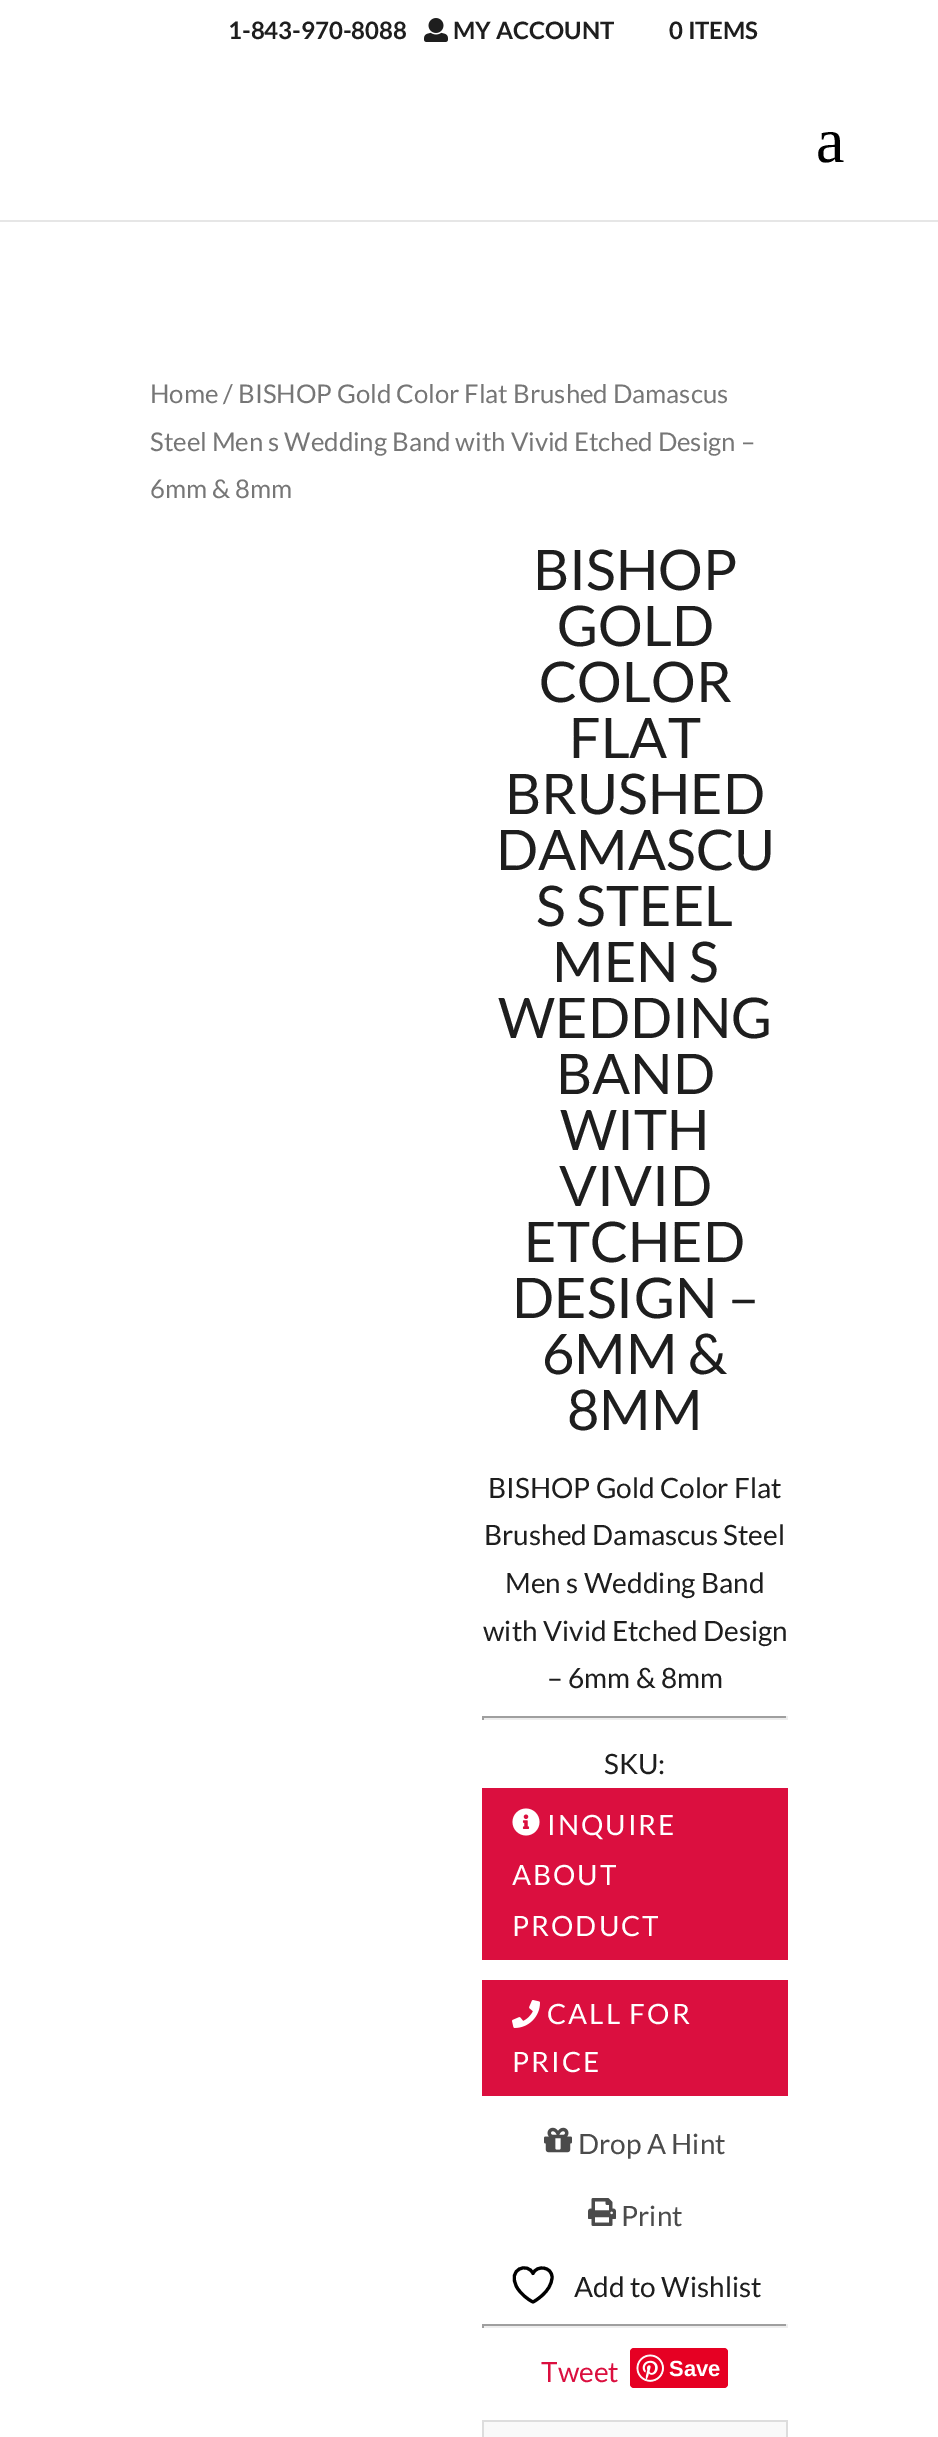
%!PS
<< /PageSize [938 2437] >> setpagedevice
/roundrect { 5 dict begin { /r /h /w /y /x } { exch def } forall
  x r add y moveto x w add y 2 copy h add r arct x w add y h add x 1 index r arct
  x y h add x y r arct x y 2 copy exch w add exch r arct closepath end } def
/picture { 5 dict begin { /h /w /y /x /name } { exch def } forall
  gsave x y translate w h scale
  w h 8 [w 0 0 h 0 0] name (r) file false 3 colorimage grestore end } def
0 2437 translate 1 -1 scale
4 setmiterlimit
1 setgray
0 0 938 2437 rectfill
/Lato-Bold [24 0 0 -24 0 0] selectfont
0.118 setgray
228 39 moveto (1-843-970-8088) show
(img1.rgb) 424 18 24 24 picture
453 39 moveto (MY ACCOUNT) show
669 39 moveto (0 ITEMS) show
0.902 setgray
0 220 938 2 rectfill
/LiberationSerif-Regular [64 0 0 -64 0 0] selectfont
0 setgray
816 162 moveto (a) show
/Lato-Regular [25.75 0 0 -25.75 0 0] selectfont
0.463 setgray
150 403 moveto (Home / BISHOP Gold Color Flat Brushed Damascus) show
150 451 moveto (Steel Men s Wedding Band with Vivid Etched Design –) show
150 498 moveto (6mm & 8mm) show
/Lato-Regular [56 0 0 -56 0 0] selectfont
0.118 setgray
533 590 moveto (BISHOP) show
557 646 moveto (GOLD) show
539 702 moveto (COLOR) show
569 758 moveto (FLAT) show
505 814 moveto (BRUSHED) show
496 870 moveto (DAMASCU) show
536 926 moveto (S STEEL) show
552 982 moveto (MEN S) show
498 1038 moveto (WEDDING) show
556 1094 moveto (BAND) show
560 1150 moveto (WITH) show
559 1206 moveto (VIVID) show
524 1262 moveto (ETCHED) show
512 1318 moveto (DESIGN –) show
542 1374 moveto (6MM &) show
567 1430 moveto (8MM) show
/Lato-Regular [28 0 0 -28 0 0] selectfont
488 1498 moveto (BISHOP Gold Color Flat) show
484 1545 moveto (Brushed Damascus Steel) show
505 1593 moveto (Men s Wedding Band) show
483 1641 moveto (with Vivid Etched Design) show
547 1688 moveto (– 6mm & 8mm) show
0.624 setgray
482 1716 306 2 rectfill
0.933 setgray
786 1716 2 4 rectfill
482 1718 306 2 rectfill
0.624 setgray
482 1716 2 4 rectfill
0.118 setgray
604 1774 moveto (SKU:) show
0.859 0.059 0.247 setrgbcolor
482 1788 306 172 rectfill
(img2.rgb) 512 1808 28 28 picture
1 setgray
547 1835 moveto 2 0 (INQUIRE) ashow
512 1885 moveto 2 0 (ABOUT) ashow
512 1936 moveto 2 0 (PRODUCT) ashow
0.859 0.059 0.247 setrgbcolor
482 1980 306 116 rectfill
(img3.rgb) 512 2000 28 28 picture
1 setgray
547 2024 moveto 2 0 (CALL FOR) ashow
512 2072 moveto 2 0 (PRICE) ashow
(img4.rgb) 544 2127 28 26 picture
0.294 setgray
578 2154 moveto (Drop A Hint) show
(img5.rgb) 588 2198 28 28 picture
621 2226 moveto (Print) show
0 setgray
3.1 setlinewidth
1 setlinecap
1 setlinejoin
newpath 552 2277 moveto 552 2267 537 2264.5 533 2273.5 curveto 528 2262 506.5 2268.5 517 2287.5 curveto 520.5 2293.5 527 2299 533 2302 curveto 533 2302 552 2292 552 2277 curveto closepath stroke
0.118 setgray
574 2297 moveto (Add to Wishlist) show
0.624 setgray
482 2324 306 2 rectfill
0.933 setgray
786 2324 2 4 rectfill
482 2326 306 2 rectfill
0.624 setgray
482 2324 2 4 rectfill
0.859 0.059 0.247 setrgbcolor
541 2382 moveto (Tweet) show
0.902 0 0.137 setrgbcolor
630 2348 98 40 4 roundrect fill
(img6.rgb) 636 2354 28 28 picture
/LiberationSans-Bold [22 0 0 -22 0 0] selectfont
1 setgray
669 2376 moveto (Save) show
0.976 setgray
484 2422 302 15 rectfill
0.867 setgray
482 2420 306 2 rectfill
786 2420 2 17 rectfill
482 2420 2 17 rectfill
showpage
